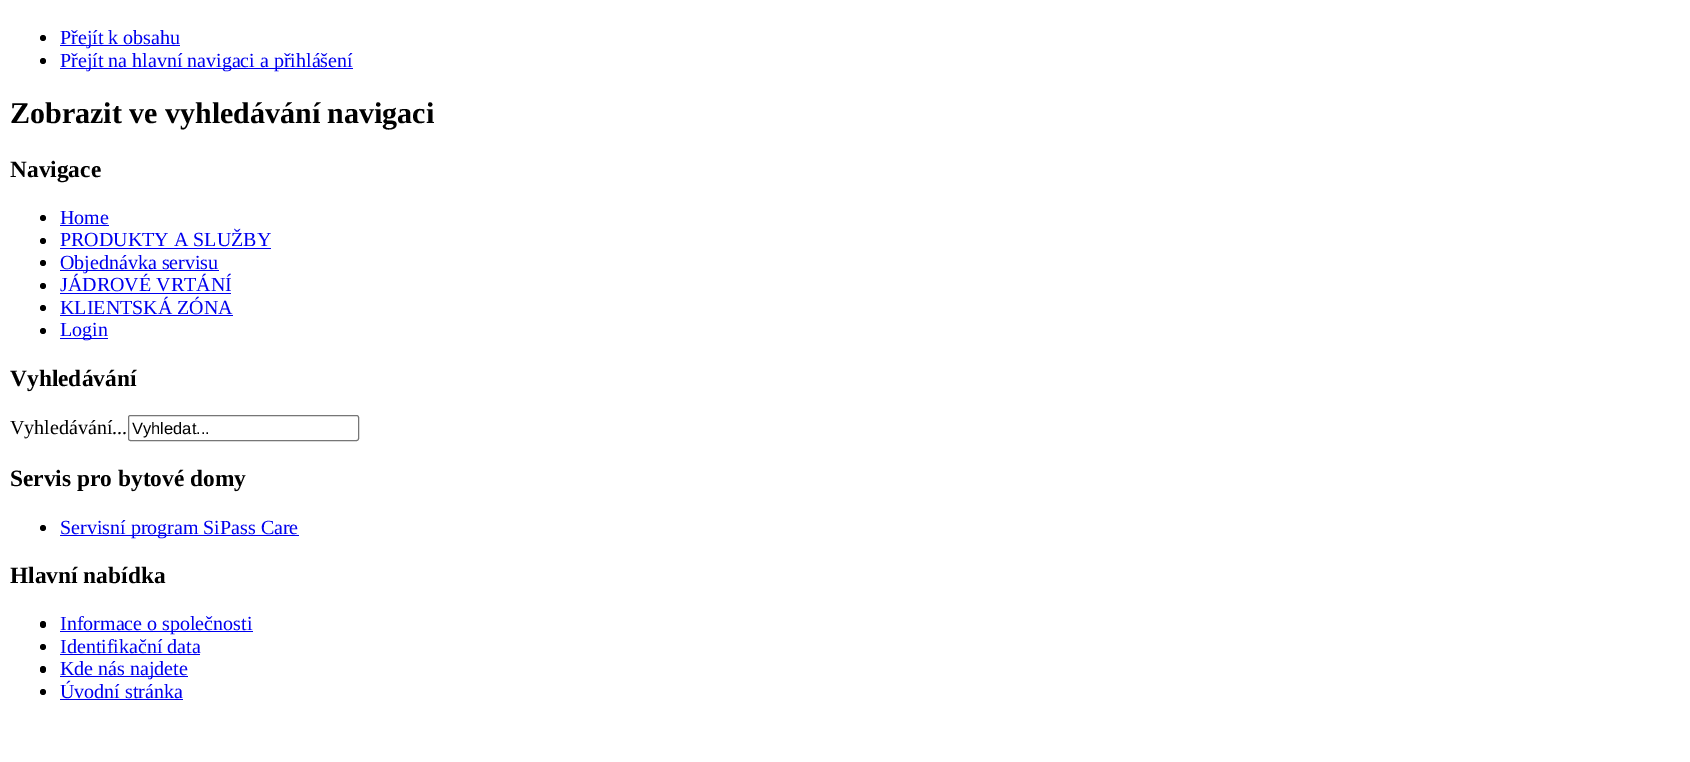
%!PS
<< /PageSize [1690 762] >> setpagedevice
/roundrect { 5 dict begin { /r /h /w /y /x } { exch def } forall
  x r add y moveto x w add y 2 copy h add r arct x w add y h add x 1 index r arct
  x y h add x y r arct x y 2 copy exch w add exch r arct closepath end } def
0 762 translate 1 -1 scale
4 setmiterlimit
1 setgray
0 0 1690 762 rectfill
0 setgray
newpath 43 38 3 0 360 arc closepath fill
0 0 0.933 setrgbcolor
60 45 120 1 rectfill
/LiberationSerif-Regular [20 0 0 -20 0 0] selectfont
60 44 moveto (Přejít k obsahu) show
0 setgray
newpath 43 61 3 0 360 arc closepath fill
0 0 0.933 setrgbcolor
60 68 293 1 rectfill
60 67 moveto (Přejít na hlavní navigaci a přihlášení) show
/LiberationSerif-Bold [30 0 0 -30 0 0] selectfont
0 setgray
10 123 moveto (Zobrazit ve vyhledávání navigaci) show
/LiberationSerif-Bold [23.4 0 0 -23.4 0 0] selectfont
10 177 moveto (Navigace) show
newpath 43 218 3 0 360 arc closepath fill
/LiberationSerif-Regular [20 0 0 -20 0 0] selectfont
0 0 0.933 setrgbcolor
60 224 moveto (Home) show
60 225 49 1 rectfill
0 setgray
newpath 43 241 3 0 360 arc closepath fill
0 0 0.933 setrgbcolor
60 246 moveto (PRODUKTY A SLUŽBY) show
60 248 211 1 rectfill
0 setgray
newpath 43 263 3 0 360 arc closepath fill
0 0 0.933 setrgbcolor
60 270 159 1 rectfill
60 269 moveto (Objednávka servisu) show
0 setgray
newpath 43 286 3 0 360 arc closepath fill
0 0 0.933 setrgbcolor
60 291 moveto (JÁDROVÉ VRTÁNÍ) show
60 293 171 1 rectfill
0 setgray
newpath 43 308 3 0 360 arc closepath fill
0 0 0.933 setrgbcolor
60 314 moveto (KLIENTSKÁ ZÓNA) show
60 315 173 1 rectfill
0 setgray
newpath 43 331 3 0 360 arc closepath fill
0 0 0.933 setrgbcolor
60 338 48 1 rectfill
60 336 moveto (Login) show
/LiberationSerif-Bold [23.4 0 0 -23.4 0 0] selectfont
0 setgray
10 386 moveto (Vyhledávání) show
/LiberationSerif-Regular [20 0 0 -20 0 0] selectfont
10 434 moveto (Vyhledávání...) show
0.463 setgray
128.5 415.5 230 25 2 roundrect stroke
/LiberationSans-Regular [16.5 0 0 -16.5 0 0] selectfont
0 setgray
132 434 moveto (Vyhledat...) show
/LiberationSerif-Bold [23.4 0 0 -23.4 0 0] selectfont
10 486 moveto (Servis pro bytové domy) show
newpath 43 528 3 0 360 arc closepath fill
0 0 0.933 setrgbcolor
60 535 239 1 rectfill
/LiberationSerif-Regular [20 0 0 -20 0 0] selectfont
60 534 moveto (Servisní program SiPass Care) show
/LiberationSerif-Bold [23.4 0 0 -23.4 0 0] selectfont
0 setgray
10 583 moveto (Hlavní nabídka) show
40 621 6 7 3 roundrect fill
0 0 0.933 setrgbcolor
60 631 193 1 rectfill
/LiberationSerif-Regular [20 0 0 -20 0 0] selectfont
60 630 moveto (Informace o společnosti) show
0 setgray
newpath 43 647 3 0 360 arc closepath fill
0 0 0.933 setrgbcolor
60 653 moveto (Identifikační data) show
60 654 140 1 rectfill
0 setgray
40 666 6 7 3 roundrect fill
0 0 0.933 setrgbcolor
60 676 128 1 rectfill
60 675 moveto (Kde nás najdete) show
0 setgray
newpath 43 692 3 0 360 arc closepath fill
0 0 0.933 setrgbcolor
60 698 moveto (Úvodní stránka) show
60 699 123 1 rectfill
showpage
